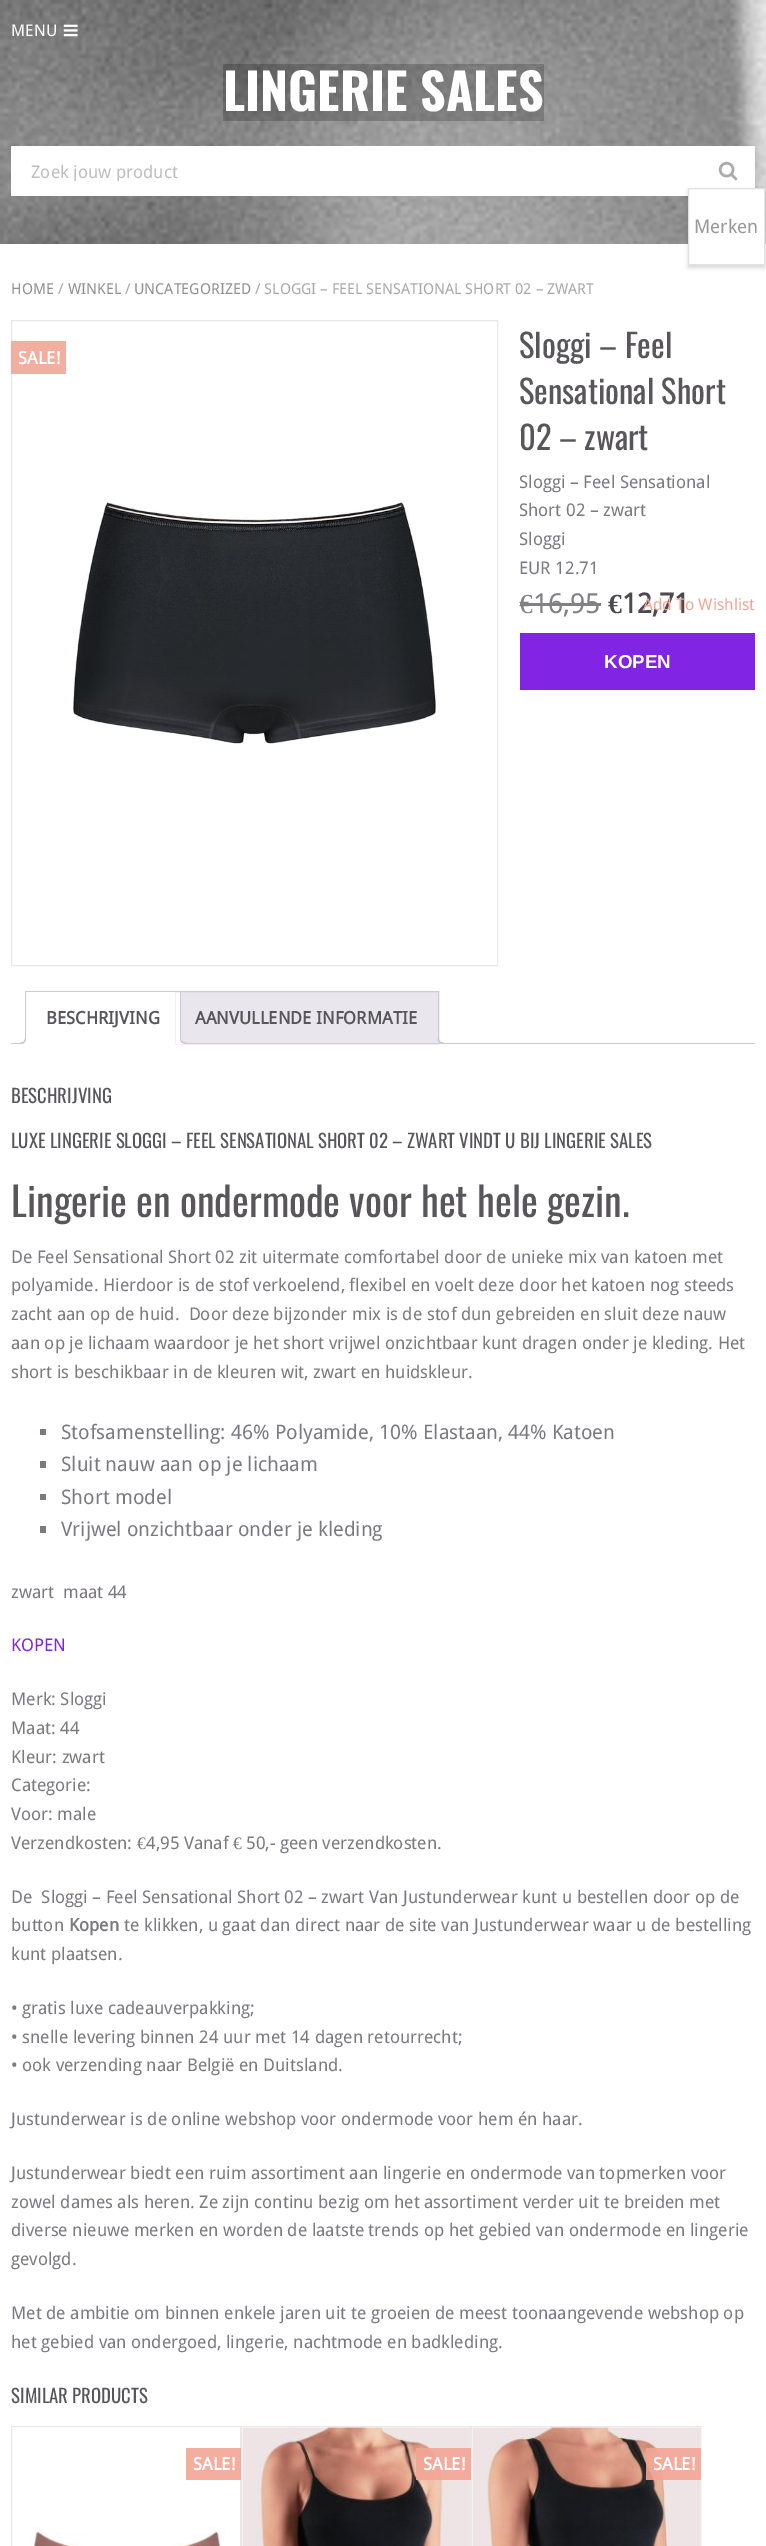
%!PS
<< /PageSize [766 2546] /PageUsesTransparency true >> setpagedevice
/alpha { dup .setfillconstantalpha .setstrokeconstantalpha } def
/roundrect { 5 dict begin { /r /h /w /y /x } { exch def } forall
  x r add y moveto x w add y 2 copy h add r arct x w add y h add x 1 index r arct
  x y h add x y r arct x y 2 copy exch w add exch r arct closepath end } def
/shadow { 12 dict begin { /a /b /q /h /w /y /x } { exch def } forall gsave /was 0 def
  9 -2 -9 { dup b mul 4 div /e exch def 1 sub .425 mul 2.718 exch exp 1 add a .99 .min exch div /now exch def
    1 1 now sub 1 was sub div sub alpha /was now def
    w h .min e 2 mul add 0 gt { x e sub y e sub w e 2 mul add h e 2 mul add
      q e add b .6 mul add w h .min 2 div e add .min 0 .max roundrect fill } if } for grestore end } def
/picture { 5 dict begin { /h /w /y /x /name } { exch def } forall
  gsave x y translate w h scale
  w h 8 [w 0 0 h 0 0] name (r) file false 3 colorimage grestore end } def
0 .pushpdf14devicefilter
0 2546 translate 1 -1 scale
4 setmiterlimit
1 setgray
0 0 766 2546 rectfill
(img1.rgb) 0 0 766 244 picture
/DroidSans-Regular [16.25 0 0 -16.25 0 0] selectfont
11 36 moveto (MENU) show
(img2.rgb) 63 24 15 13 picture
0.2 alpha
0 setgray
223 64 321 57 rectfill
/Oswald-Bold [50 0 0 -50 0 0] selectfont
1 alpha
1 setgray
223 111 moveto (LINGERIE SALES) show
11 146 744 50 rectfill
gsave
13 161 667 20 rectclip
/DroidSans-Regular [17.5 0 0 -17.5 0 0] selectfont
0.745 0.741 0.749 setrgbcolor
31 178 moveto (Zoek jouw product) show
grestore
(img3.rgb) 718 161 20 20 picture
/DroidSans-Regular [15 0 0 -15 0 0] selectfont
0.565 0.561 0.569 setrgbcolor
11 294 moveto (HOME) show
0.663 0.659 0.663 setrgbcolor
58 294 moveto (/) show
0.565 0.561 0.569 setrgbcolor
68 294 moveto (WINKEL) show
0.663 0.659 0.663 setrgbcolor
125 294 moveto (/) show
0.565 0.561 0.569 setrgbcolor
134 294 moveto (UNCATEGORIZED) show
0.663 0.659 0.663 setrgbcolor
255 294 moveto (/ SLOGGI – FEEL SENSATIONAL SHORT 02 – ZWART) show
0.91 setgray
11.5 320.5 486 645 rectstroke
(img4.rgb) 73 502 364 242 picture
/Oswald-Regular [32.5 0 0 -32.5 0 0] selectfont
0.345 0.337 0.357 setrgbcolor
519 358 moveto (Sloggi – Feel) show
519 404 moveto (Sensational Short) show
519 450 moveto (02 – zwart) show
/DroidSans-Regular [17.5 0 0 -17.5 0 0] selectfont
0.486 0.475 0.502 setrgbcolor
519 488 moveto (Sloggi – Feel Sensational) show
519 516 moveto (Short 02 – zwart) show
519 545 moveto (Sloggi) show
519 574 moveto (EUR 12.71) show
/LiberationSerif-Regular [27.5 0 0 -27.5 0 0] selectfont
0.51 0.502 0.522 setrgbcolor
519 613 moveto (€) show
520 603 14 3 rectfill
/DroidSans-Regular [27.5 0 0 -27.5 0 0] selectfont
533 613 moveto (16,95) show
534 603 67 3 rectfill
/LiberationSerif-Bold [27.5 0 0 -27.5 0 0] selectfont
0.298 0.286 0.318 setrgbcolor
608 613 moveto (€) show
/DroidSans-Bold [27.5 0 0 -27.5 0 0] selectfont
622 613 moveto (12,71) show
/DroidSans-Regular [16.25 0 0 -16.25 0 0] selectfont
0.949 0.647 0.584 setrgbcolor
643 610 moveto (Add To Wishlist) show
0.51 0.141 0.89 setrgbcolor
520 633 235 57 rectfill
/LiberationSans-Bold [18.75 0 0 -18.75 0 0] selectfont
1 setgray
604 668 moveto (KOPEN) show
0.9 alpha
0.949 0.647 0.584 setrgbcolor
11 341 55 33 rectfill
/DroidSans-Bold [17.5 0 0 -17.5 0 0] selectfont
1 alpha
1 setgray
18 364 moveto (SALE!) show
0.914 0.902 0.929 setrgbcolor
181 992 257 51 rectfill
0.812 0.784 0.847 setrgbcolor
174.5 991.5 264 52 rectstroke
1 setgray
174 992 1 51 rectfill
0.812 0.784 0.847 setrgbcolor
25 991 156 1 rectfill
gsave
11 991 744 53 rectclip
0.914 0.902 0.929 setrgbcolor
newpath 435 1040 moveto 435 1044 437 1046 441 1046 curveto 441 1043.5 lineto 439.5 1043 438 1041.5 437.5 1040 curveto closepath fill
grestore
newpath 437.5 1037.5 moveto 444 1037.5 lineto 444 1044 lineto 440.5 1044 437.5 1042.5 437.5 1039 curveto closepath 439 1037.5 moveto 444 1037.5 lineto 444 1042.5 lineto 441.5 1042.5 439 1041.5 439 1039 curveto closepath eofill
11 1043 744 1 rectfill
180 991 1 53 rectfill
1 setgray
25 1043 156 1 rectfill
0.812 0.784 0.847 setrgbcolor
25 991 1 53 rectfill
0.345 0.337 0.357 setrgbcolor
46 1024 moveto (BESCHRIJVING) show
gsave
11 991 744 53 rectclip
1 setgray
newpath 23 1043.5 moveto 23 1046 lineto 27 1046 29 1044 29 1040 curveto 26 1040 lineto 25.5 1041.5 24.5 1043 23 1043.5 curveto closepath fill
grestore
0.812 0.784 0.847 setrgbcolor
newpath 20 1037.5 moveto 26 1037.5 lineto 26 1042 24.5 1044 20 1044 curveto closepath 20 1037.5 moveto 25 1037.5 lineto 25 1041 23.5 1042.5 20 1042.5 curveto closepath eofill
gsave
11 991 744 53 rectclip
1 setgray
newpath 178 1040 moveto 178 1044 180 1046 184 1046 curveto 184 1043.5 lineto 182 1043.5 180.5 1042 180 1040 curveto closepath fill
grestore
newpath 180 1037.5 moveto 186 1037.5 lineto 186 1044 lineto 183 1044 180 1042.5 180 1039 curveto closepath 181 1037.5 moveto 186 1037.5 lineto 186 1042.5 lineto 184 1042.5 181 1041.5 181 1039 curveto closepath eofill
0.345 0.337 0.357 setrgbcolor
195 1024 moveto (AANVULLENDE INFORMATIE) show
/Oswald-Regular [18.75 0 0 -18.75 0 0] selectfont
11 1103 moveto (BESCHRIJVING) show
11 1148 moveto (LUXE LINGERIE SLOGGI – FEEL SENSATIONAL SHORT 02 – ZWART VINDT U BIJ LINGERIE SALES) show
/Oswald-Regular [40 0 0 -40 0 0] selectfont
11 1217 moveto (Lingerie en ondermode voor het hele gezin.) show
/DroidSans-Regular [17.5 0 0 -17.5 0 0] selectfont
0.486 0.475 0.502 setrgbcolor
11 1263 moveto (De Feel Sensational Short 02 zit uitermate comfortabel door de unieke mix van katoen met) show
11 1291 moveto (polyamide. Hierdoor is de stof verkoelend, flexibel en voelt deze door het katoen nog steeds) show
11 1320 moveto (zacht aan op de huid.  Door deze bijzonder mix is de stof dun gebreiden en sluit deze nauw) show
11 1349 moveto (aan op je lichaam waardoor je het short vrijwel onzichtbaar kunt dragen onder je kleding. Het) show
11 1378 moveto (short is beschikbaar in de kleuren wit, zwart en huidskleur.) show
40 1429 6 6 rectfill
/DroidSans-Regular [20 0 0 -20 0 0] selectfont
61 1439 moveto (Stofsamenstelling: 46% Polyamide, 10% Elastaan, 44% Katoen) show
40 1461 6 7 rectfill
61 1471 moveto (Sluit nauw aan op je lichaam) show
40 1494 6 6 rectfill
61 1504 moveto (Short model) show
40 1526 6 7 rectfill
61 1536 moveto (Vrijwel onzichtbaar onder je kleding) show
/DroidSans-Regular [17.5 0 0 -17.5 0 0] selectfont
11 1598 moveto (zwart  maat 44) show
0.51 0.141 0.89 setrgbcolor
11 1651 moveto (KOPEN) show
0.486 0.475 0.502 setrgbcolor
11 1705 moveto (Merk: Sloggi) show
11 1734 moveto (Maat: 44) show
11 1763 moveto (Kleur: zwart) show
11 1791 moveto (Categorie:) show
11 1820 moveto (Voor: male) show
11 1849 moveto (Verzendkosten:) show
/LiberationSerif-Regular [17.5 0 0 -17.5 0 0] selectfont
137 1849 moveto (€) show
/DroidSans-Regular [17.5 0 0 -17.5 0 0] selectfont
146 1849 moveto (4,95 Vanaf) show
/LiberationSerif-Regular [17.5 0 0 -17.5 0 0] selectfont
233 1849 moveto (€) show
/DroidSans-Regular [17.5 0 0 -17.5 0 0] selectfont
246 1849 moveto (50,- geen verzendkosten.) show
11 1903 moveto (De  Sloggi – Feel Sensational Short 02 – zwart Van Justunderwear kunt u bestellen door op de) show
11 1931 moveto (button) show
/DroidSans-Bold [17.5 0 0 -17.5 0 0] selectfont
69 1931 moveto (Kopen) show
/DroidSans-Regular [17.5 0 0 -17.5 0 0] selectfont
124 1931 moveto (te klikken, u gaat dan direct naar de site van Justunderwear waar u de bestelling) show
11 1960 moveto (kunt plaatsen.) show
11 2014 moveto (• gratis luxe cadeauverpakking;) show
11 2043 moveto (• snelle levering binnen 24 uur met 14 dagen retourrecht;) show
11 2071 moveto (• ook verzending naar België en Duitsland.) show
11 2125 moveto (Justunderwear is de online webshop voor ondermode voor hem én haar.) show
11 2179 moveto (Justunderwear biedt een ruim assortiment aan lingerie en ondermode van topmerken voor) show
11 2208 moveto (zowel dames als heren. Ze zijn continu bezig om het assortiment verder uit te breiden met) show
11 2236 moveto (diverse nieuwe merken en worden de laatste trends op het gebied van ondermode en lingerie) show
11 2265 moveto (gevolgd.) show
11 2319 moveto (Met de ambitie om binnen enkele jaren uit te groeien de meest toonaangevende webshop op) show
11 2348 moveto (het gebied van ondergoed, lingerie, nachtmode en badkleding.) show
/Oswald-Regular [18.75 0 0 -18.75 0 0] selectfont
0.345 0.337 0.357 setrgbcolor
11 2403 moveto (SIMILAR PRODUCTS) show
0.91 setgray
11.5 2426.5 229 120 rectstroke
(img5.rgb) 31 2527 194 19 picture
0.9 alpha
0.949 0.647 0.584 setrgbcolor
186 2448 55 32 rectfill
/DroidSans-Bold [17.5 0 0 -17.5 0 0] selectfont
1 alpha
1 setgray
193 2470 moveto (SALE!) show
0.91 setgray
241.5 2426.5 229 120 rectstroke
(img6.rgb) 242 2427 228 119 picture
0.9 alpha
0.949 0.647 0.584 setrgbcolor
416 2448 55 32 rectfill
1 alpha
1 setgray
423 2470 moveto (SALE!) show
0.91 setgray
471.5 2426.5 229 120 rectstroke
(img7.rgb) 472 2427 228 119 picture
0.9 alpha
0.949 0.647 0.584 setrgbcolor
646 2448 55 32 rectfill
1 alpha
1 setgray
653 2470 moveto (SALE!) show
0 setgray
688 190 77 78 0 2 0.15 shadow
1 setgray
newpath 688.5 188.5 moveto 764.5 188.5 lineto 764.5 264.5 lineto 688.5 264.5 lineto closepath gsave fill grestore
0.882 setgray
stroke
/DroidSans-Regular [18.75 0 0 -18.75 0 0] selectfont
0.6 setgray
694 233 moveto (Merken) show
.poppdf14devicefilter showpage
